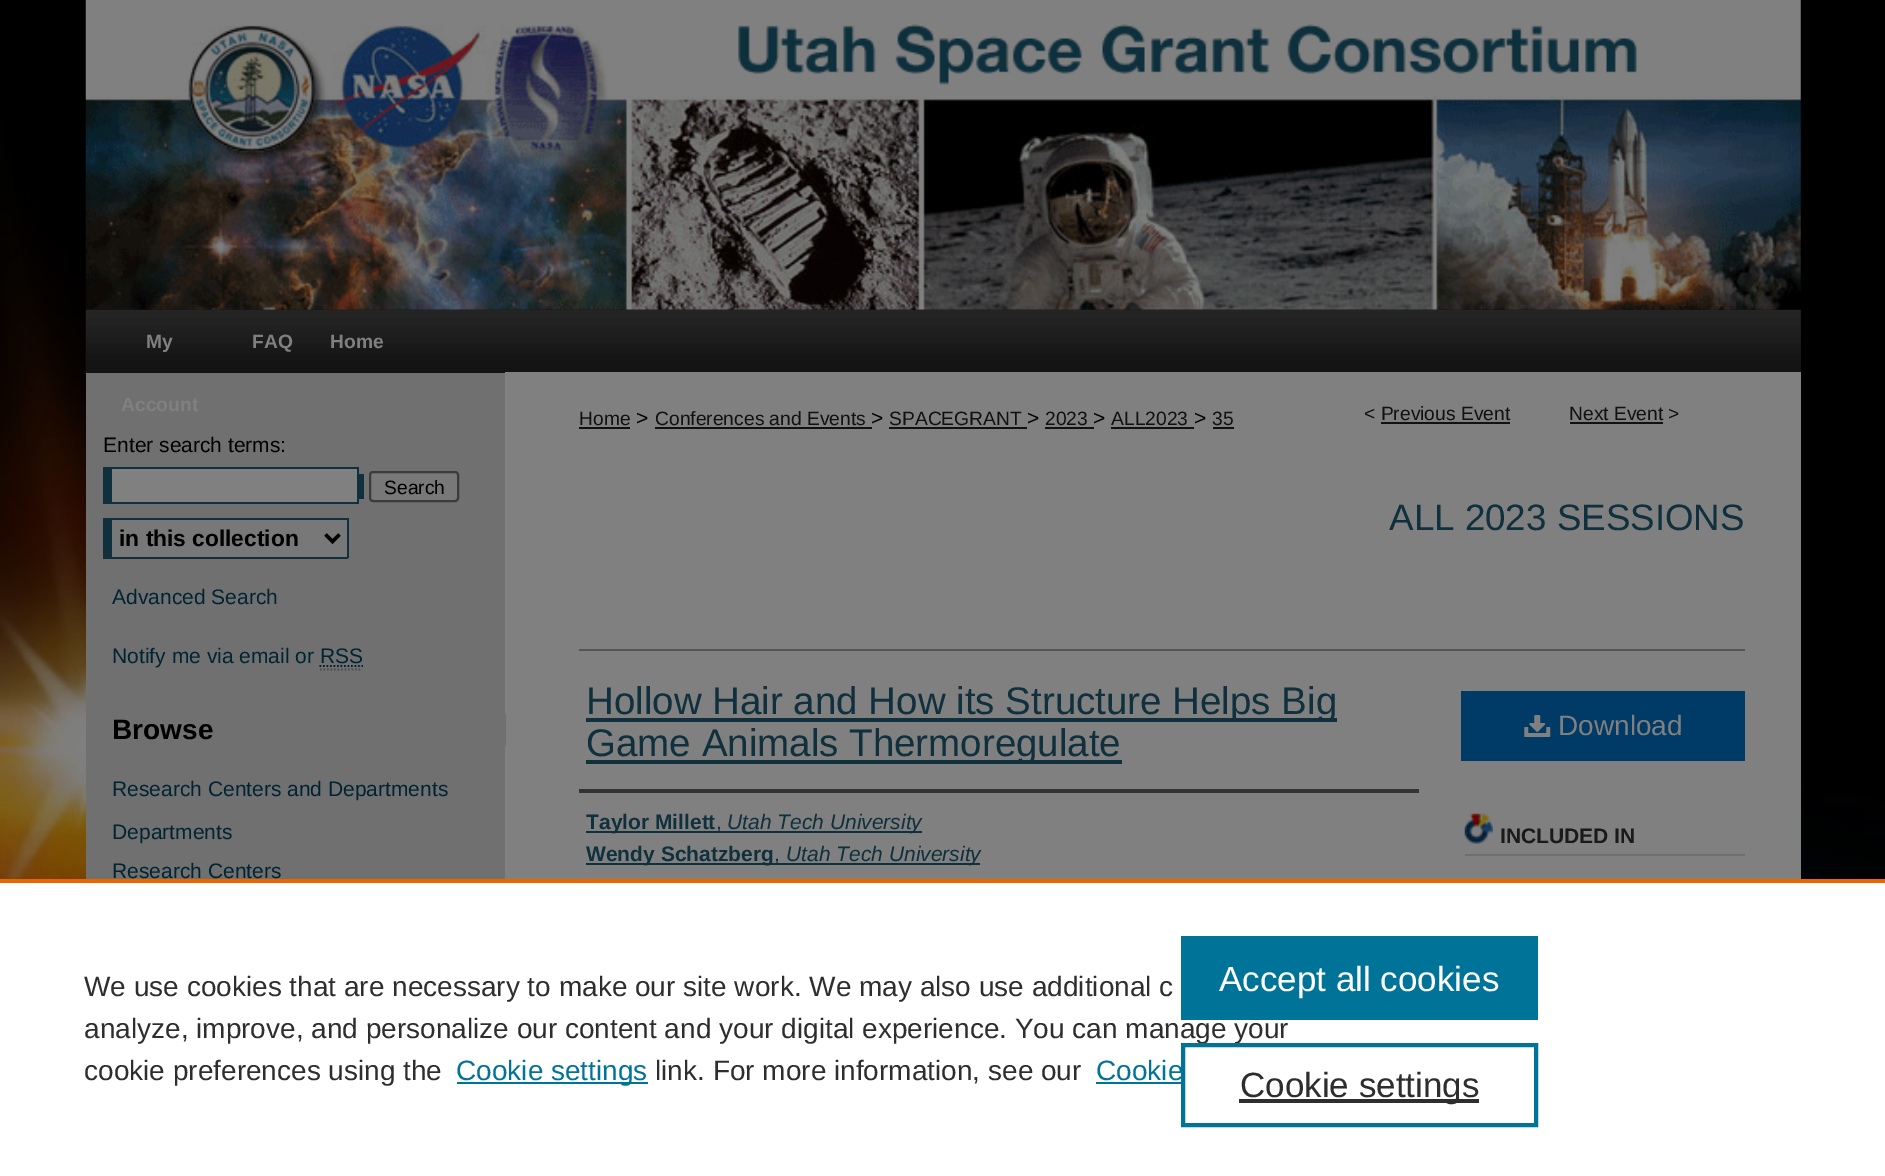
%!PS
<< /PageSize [1885 1176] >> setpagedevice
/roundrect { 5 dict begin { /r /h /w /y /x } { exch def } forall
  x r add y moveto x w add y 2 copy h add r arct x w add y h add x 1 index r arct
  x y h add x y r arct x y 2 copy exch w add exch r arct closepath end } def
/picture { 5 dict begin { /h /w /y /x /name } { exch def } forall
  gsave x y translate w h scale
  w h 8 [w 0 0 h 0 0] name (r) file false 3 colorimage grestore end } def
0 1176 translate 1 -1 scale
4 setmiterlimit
1 setgray
0 0 1885 1176 rectfill
(img1.rgb) 0 0 1885 879 picture
0 setgray
86 0 501 310 rectfill
(img2.rgb) 85 0 1716 310 picture
(img3.rgb) 85 309 1716 64 picture
/LiberationSans-Bold [19.25 0 0 -19.25 0 0] selectfont
0.502 setgray
146 348 moveto (My) show
0.439 setgray
86 373 419 506 rectfill
0.502 setgray
121 411 moveto (Account) show
252 348 moveto (FAQ) show
330 348 moveto (Home) show
505 372 1296 507 rectfill
/LiberationSans-Regular [21 0 0 -21 0 0] selectfont
0 setgray
103 452 moveto (Enter search terms:) show
0.059 0.188 0.235 setrgbcolor
359 474 5 25 rectfill
0.502 setgray
112 469 245 33 rectfill
0.059 0.188 0.235 setrgbcolor
112 467 247 2 rectfill
357 467 2 37 rectfill
112 502 247 2 rectfill
103 467 9 37 rectfill
0.471 setgray
370 472 88 29 3 roundrect gsave fill grestore
0.231 setgray
2 setlinewidth
stroke
/LiberationSans-Regular [19.25 0 0 -19.25 0 0] selectfont
0 setgray
384 494 moveto (Search) show
0.471 setgray
112 520 235 37 rectfill
0.059 0.188 0.235 setrgbcolor
112 518 236 2 rectfill
347 518 2 40 rectfill
103 557 245 2 rectfill
103 518 9 39 rectfill
0 setgray
3.5 setlinewidth
newpath 325.5 534.5 moveto 332.5 541.5 lineto 339.5 534.5 lineto stroke
/LiberationSans-Bold [22.75 0 0 -22.75 0 0] selectfont
119 546 moveto (in this collection) show
/LiberationSans-Regular [21 0 0 -21 0 0] selectfont
0 0.141 0.192 setrgbcolor
112 604 moveto (Advanced Search) show
112 663 moveto (Notify me via email or RSS) show
1.8 setlinewidth
[1.75 1.75] 0 setdash
newpath 319.5 666 moveto 363 666 lineto stroke
0.302 setgray
newpath 320 669.5 moveto 362 669.5 lineto stroke
0.439 setgray
505 714 1 32 rectfill
/LiberationSans-Bold [28 0 0 -28 0 0] selectfont
0 setgray
112 739 moveto (Browse) show
/LiberationSans-Regular [21 0 0 -21 0 0] selectfont
0 0.141 0.192 setrgbcolor
112 796 moveto (Research Centers and Departments) show
112 839 moveto (Departments) show
112 878 moveto (Research Centers) show
/LiberationSans-Regular [19.25 0 0 -19.25 0 0] selectfont
0.067 setgray
579 425 moveto (Home) show
579 427 51 2 rectfill
/LiberationSans-Regular [21 0 0 -21 0 0] selectfont
0 setgray
636 425 moveto (>) show
/LiberationSans-Regular [19.25 0 0 -19.25 0 0] selectfont
0.067 setgray
655 425 moveto (Conferences and Events) show
655 427 217 2 rectfill
/LiberationSans-Regular [21 0 0 -21 0 0] selectfont
0 setgray
871 425 moveto (>) show
/LiberationSans-Regular [19.25 0 0 -19.25 0 0] selectfont
0.067 setgray
889 425 moveto (SPACEGRANT) show
889 427 138 2 rectfill
/LiberationSans-Regular [21 0 0 -21 0 0] selectfont
0 setgray
1027 425 moveto (>) show
/LiberationSans-Regular [19.25 0 0 -19.25 0 0] selectfont
0.067 setgray
1045 425 moveto (2023) show
1045 427 49 2 rectfill
/LiberationSans-Regular [21 0 0 -21 0 0] selectfont
0 setgray
1093 425 moveto (>) show
/LiberationSans-Regular [19.25 0 0 -19.25 0 0] selectfont
0.067 setgray
1111 425 moveto (ALL2023) show
1111 427 83 2 rectfill
/LiberationSans-Regular [21 0 0 -21 0 0] selectfont
0 setgray
1194 425 moveto (>) show
/LiberationSans-Regular [19.25 0 0 -19.25 0 0] selectfont
0.067 setgray
1212 425 moveto (35) show
1213 427 21 2 rectfill
1364 420 moveto (< Previous Event) show
1381 422 129 2 rectfill
1569 420 moveto (Next Event >) show
1570 422 93 2 rectfill
/LiberationSans-Regular [36.75 0 0 -36.75 0 0] selectfont
0.059 0.188 0.235 setrgbcolor
1389 530 moveto (ALL 2023 SESSIONS) show
0.333 setgray
579 649 1166 2 rectfill
0.059 0.188 0.235 setrgbcolor
586 718 751 4 rectfill
/LiberationSans-Regular [38.5 0 0 -38.5 0 0] selectfont
586 714 moveto (Hollow Hair and How its Structure Helps Big) show
586 760 536 4 rectfill
586 756 moveto (Game Animals Thermoregulate) show
0.2 setgray
579 789 840 4 rectfill
0.059 0.188 0.235 setrgbcolor
586 831 336 2 rectfill
/LiberationSans-Bold [21 0 0 -21 0 0] selectfont
586 829 moveto (Taylor Millett) show
/LiberationSans-Regular [21 0 0 -21 0 0] selectfont
716 829 moveto (,) show
/LiberationSans-Italic [21 0 0 -21 0 0] selectfont
727 829 moveto (Utah Tech University) show
586 863 394 2 rectfill
/LiberationSans-Bold [21 0 0 -21 0 0] selectfont
586 861 moveto (Wendy Schatzberg) show
/LiberationSans-Regular [21 0 0 -21 0 0] selectfont
774 861 moveto (,) show
/LiberationSans-Italic [21 0 0 -21 0 0] selectfont
786 861 moveto (Utah Tech University) show
0 0.227 0.4 setrgbcolor
1461 691 284 70 rectfill
(img4.rgb) 1524 715 27 22 picture
/LiberationSans-Regular [28 0 0 -28 0 0] selectfont
0.502 setgray
1558 735 moveto (Download) show
(img5.rgb) 1464 813 29 31 picture
0.435 setgray
1465 854 280 2 rectfill
/LiberationSans-Bold [21 0 0 -21 0 0] selectfont
0.102 setgray
1500 843 moveto (INCLUDED IN) show
0.922 0.396 0 setrgbcolor
0 879 1885 4 rectfill
/LiberationSans-Regular [28 0 0 -28 0 0] selectfont
0.18 setgray
84 996 moveto (We use cookies that are necessary to make our site work. We may also use additional c) show
84 1038 moveto (analyze, improve, and personalize our content and your digital experience. You can manage your) show
84 1080 moveto (cookie preferences using the) show
0 0.451 0.596 setrgbcolor
457 1082 191 2 rectfill
456 1080 moveto (Cookie settings) show
0.18 setgray
655 1080 moveto (link. For more information, see our) show
0 0.451 0.596 setrgbcolor
1096 1080 moveto (Cookie) show
1096 1082 85 2 rectfill
1181 936 357 84 rectfill
/LiberationSans-Regular [35 0 0 -35 0 0] selectfont
1 setgray
1219 991 moveto (Accept all cookies) show
0 0.451 0.596 setrgbcolor
4 setlinewidth
[] 0 setdash
1183 1045 353 80 rectstroke
0.18 setgray
1239 1099 240 4 rectfill
1240 1097 moveto (Cookie settings) show
showpage
